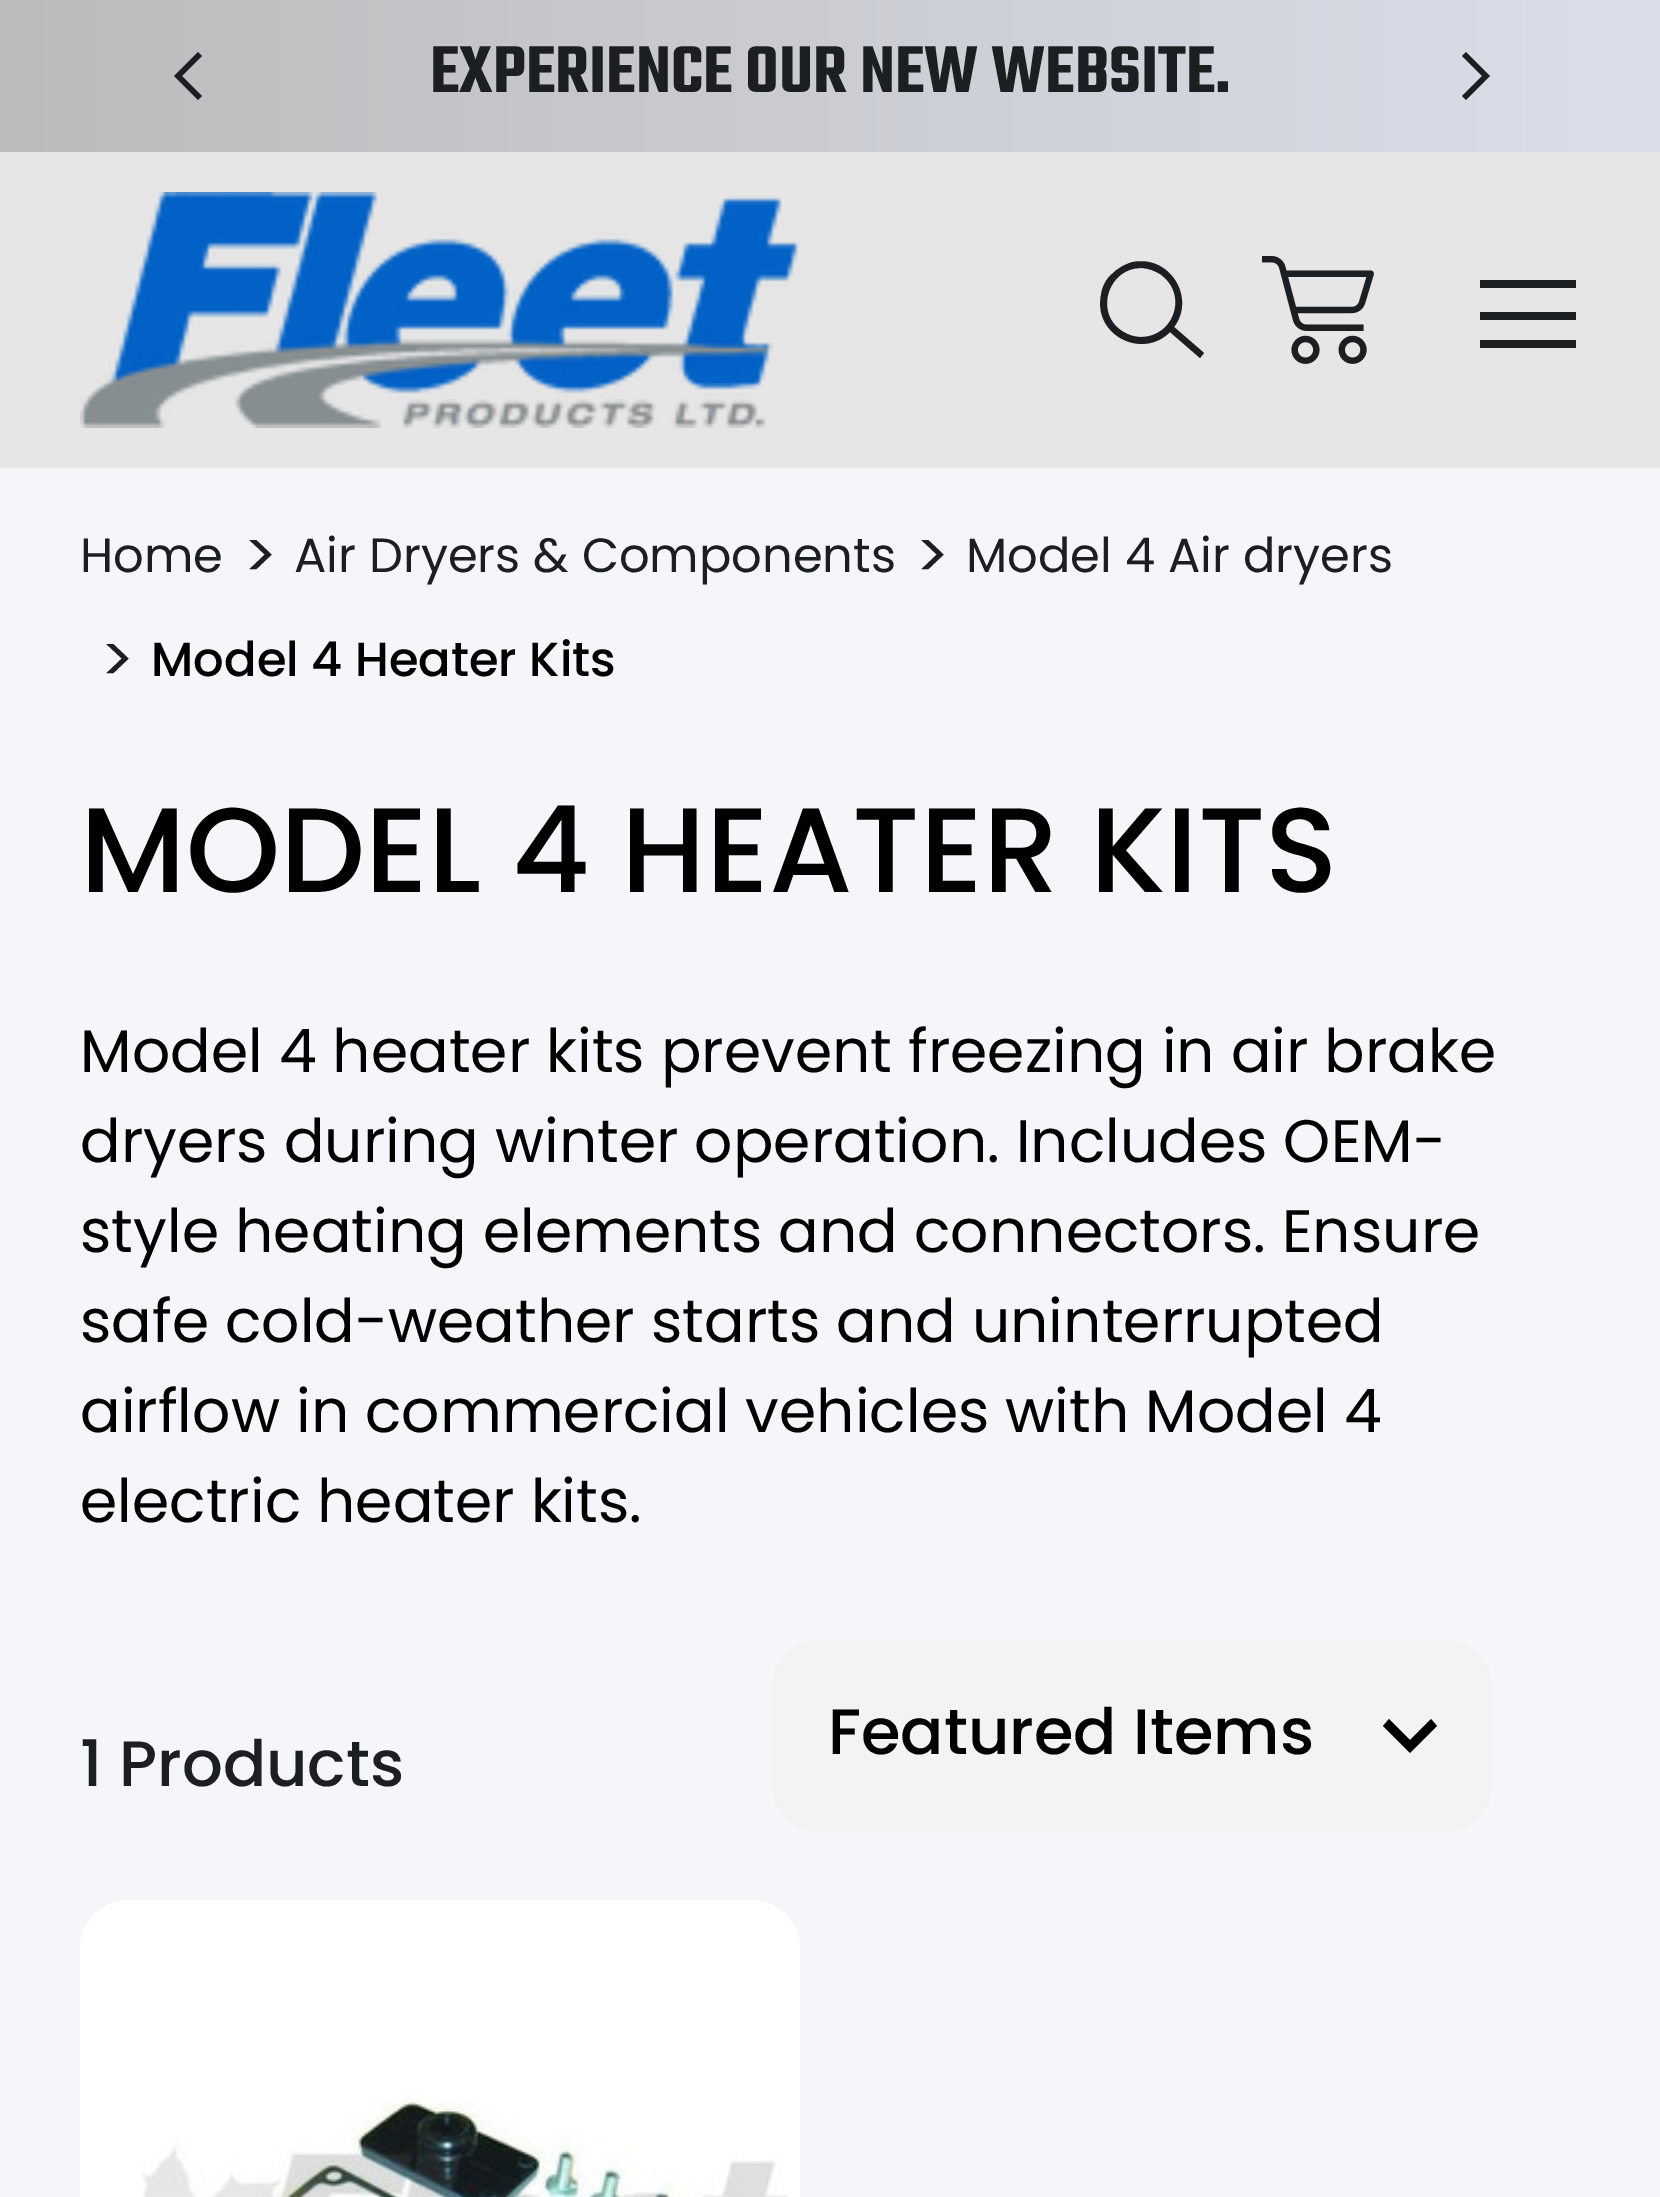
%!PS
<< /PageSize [1660 2197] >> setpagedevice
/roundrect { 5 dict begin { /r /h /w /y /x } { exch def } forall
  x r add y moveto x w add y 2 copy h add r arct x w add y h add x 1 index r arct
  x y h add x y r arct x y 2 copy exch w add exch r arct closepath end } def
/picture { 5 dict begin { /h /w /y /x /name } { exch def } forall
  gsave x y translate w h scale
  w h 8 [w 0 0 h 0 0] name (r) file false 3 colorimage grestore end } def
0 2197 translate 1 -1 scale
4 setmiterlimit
0.957 0.965 0.976 setrgbcolor
0 0 1660 2197 rectfill
0.902 setgray
0 152 1660 316 rectfill
gsave newpath 0 0 moveto 1660 0 lineto 1660 152 lineto 0 152 lineto closepath clip newpath
<< /ShadingType 2 /ColorSpace /DeviceRGB /Coords [0 76 1660 76] /Extend [true true] /Function << /FunctionType 2 /Domain [0 1] /C0 [0.733 0.733 0.733] /C1 [0.859 0.875 0.922] /N 1 >> >> shfill grestore
0.11 0.122 0.133 setrgbcolor
newpath 198 100 moveto 174 76 lineto 198 52 lineto 202 56 lineto 182 76 lineto 202 96 lineto closepath fill
/Teko-SemiBold [72 0 0 -72 0 0] selectfont
430 92 moveto (EXPERIENCE OUR NEW WEBSITE.) show
newpath 1466 52 moveto 1490 76 lineto 1466 100 lineto 1462 96 lineto 1482 76 lineto 1462 56 lineto closepath fill
(img1.rgb) 80 192 720 236 picture
newpath 1204 353 moveto 1174 327 lineto 1196 298 1170 255 1133 262 curveto 1125 264 1118 268 1112 274 curveto 1106 279 1102 287 1101 295 curveto 1093 335 1142 360 1170 332 curveto 1200 358 lineto closepath 1141 337 moveto 1134 337 1128 335 1122 331 curveto 1094 313 1108 268 1141 268 curveto 1148 268 1155 271 1160 274 curveto 1189 294 1174 337 1141 337 curveto closepath fill
(img2.rgb) 1262 256 112 108 picture
1480 312 96 8 rectfill
1480 280 96 8 rectfill
1480 340 96 8 rectfill
/Poppins-Regular [48 0 0 -48 0 0] selectfont
80 572 moveto (Home) show
/Poppins-Regular [64 0 0 -64 0 0] selectfont
243 578 moveto (>) show
/Poppins-Regular [48 0 0 -48 0 0] selectfont
294 572 moveto (Air Dryers & Components) show
/Poppins-Regular [64 0 0 -64 0 0] selectfont
915 578 moveto (>) show
/Poppins-Regular [48 0 0 -48 0 0] selectfont
966 572 moveto (Model 4 Air dryers) show
/Poppins-Regular [64 0 0 -64 0 0] selectfont
100 682 moveto (>) show
/Poppins-Medium [48 0 0 -48 0 0] selectfont
0 setgray
151 676 moveto (Model 4 Heater Kits) show
/Poppins-Medium [120 0 0 -120 0 0] selectfont
80 892 moveto (MODEL 4 HEATER KITS) show
/Poppins-Regular [60 0 0 -60 0 0] selectfont
80 1072 moveto (Model 4 heater kits prevent freezing in air brake) show
80 1162 moveto (dryers during winter operation. Includes OEM-) show
80 1252 moveto (style heating elements and connectors. Ensure) show
80 1342 moveto (safe cold-weather starts and uninterrupted) show
80 1432 moveto (airflow in commercial vehicles with Model 4) show
80 1522 moveto (electric heater kits.) show
0.953 setgray
772 1640 720 192 48 roundrect fill
0 setgray
newpath 1389 1719 moveto 1410 1740 lineto 1431 1719 lineto 1437 1726 lineto 1410 1753 lineto 1383 1726 lineto closepath fill
/Poppins-Medium [64 0 0 -64 0 0] selectfont
828 1754 moveto (Featured Items) show
0.11 0.122 0.133 setrgbcolor
80 1786 moveto (1 Products) show
1 setgray
80 1900 720 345 48 roundrect fill
(img3.rgb) 141 2095 648 102 picture
showpage
